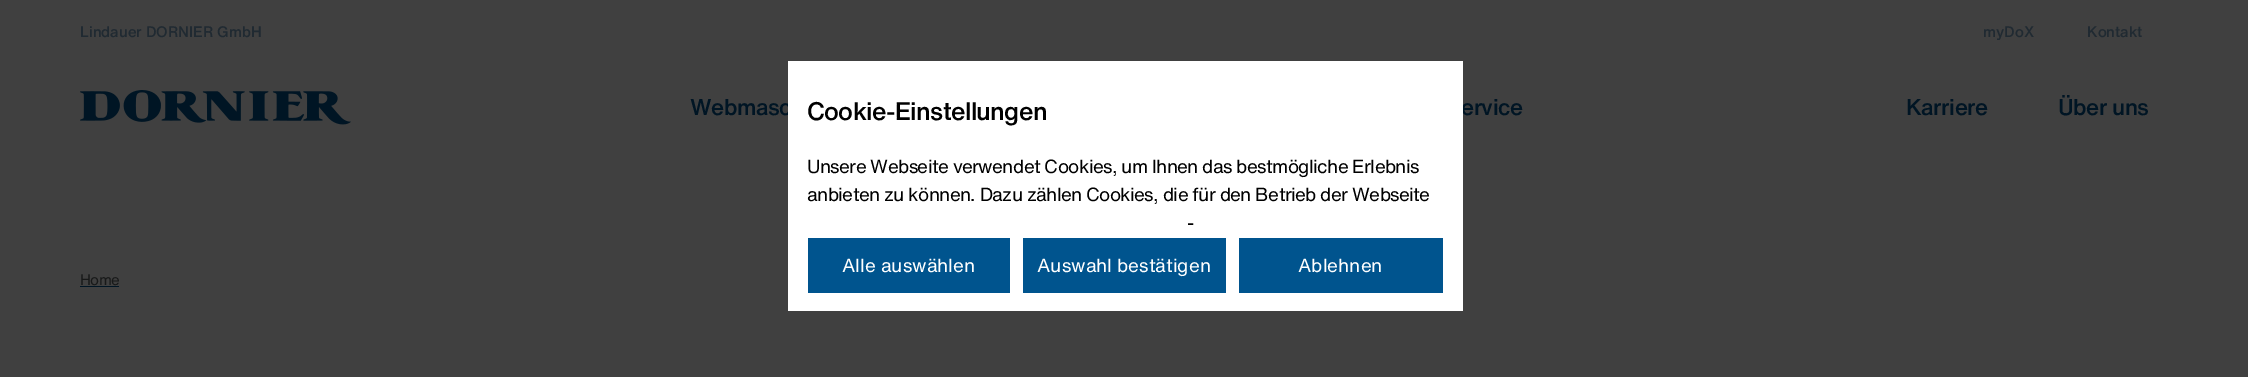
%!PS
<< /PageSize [2248 377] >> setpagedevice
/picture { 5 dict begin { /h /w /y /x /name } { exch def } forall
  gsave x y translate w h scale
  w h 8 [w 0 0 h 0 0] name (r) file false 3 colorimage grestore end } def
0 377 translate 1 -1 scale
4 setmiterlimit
0.251 setgray
0 0 2248 377 rectfill
/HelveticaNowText-Medium [15 0 0 -15 0 0] selectfont
0.125 0.165 0.196 setrgbcolor
80 37 moveto (Lindauer DORNIER GmbH) show
1983 37 moveto (myDoX) show
2087 37 moveto (Kontakt) show
(img1.rgb) 80 90 271 35 picture
/HelveticaNowText-Medium [22.5 0 0 -22.5 0 0] selectfont
0 0.082 0.141 setrgbcolor
690 115 moveto -0.5 0 (Webmasc) ashow
1461 115 moveto -0.5 0 (ervice) ashow
1906 115 moveto -0.5 0 (Karriere) ashow
2058 115 moveto -0.5 0 (Über uns) ashow
1 setgray
788 61 675 250 rectfill
/HelveticaNowText-Medium [25 0 0 -25 0 0] selectfont
0 setgray
807 120 moveto -0.62 0 (Cookie-Einstellungen) ashow
/HelveticaNowText-Regular [18.75 0 0 -18.75 0 0] selectfont
807 173 moveto -0.62 0 (Unsere Webseite verwendet Cookies, um Ihnen das bestmögliche Erlebnis) ashow
807 201 moveto -0.62 0 (anbieten zu können. Dazu zählen Cookies, die für den Betrieb der Webseite) ashow
1187 229 moveto -0.62 0 (-) ashow
0 0.329 0.557 setrgbcolor
808 238 202 55 rectfill
1 setgray
842 272 moveto (Alle auswählen) show
0 0.329 0.557 setrgbcolor
1023 238 203 55 rectfill
1 setgray
1037 272 moveto (Auswahl bestätigen) show
0 0.329 0.557 setrgbcolor
1239 238 204 55 rectfill
1 setgray
1298 272 moveto (Ablehnen) show
/HelveticaNowText-Regular [15 0 0 -15 0 0] selectfont
0.094 0.098 0.098 setrgbcolor
80 285 moveto -0.62 0 (Home) ashow
0 0.082 0.141 setrgbcolor
80 286 39 1 rectfill
showpage
